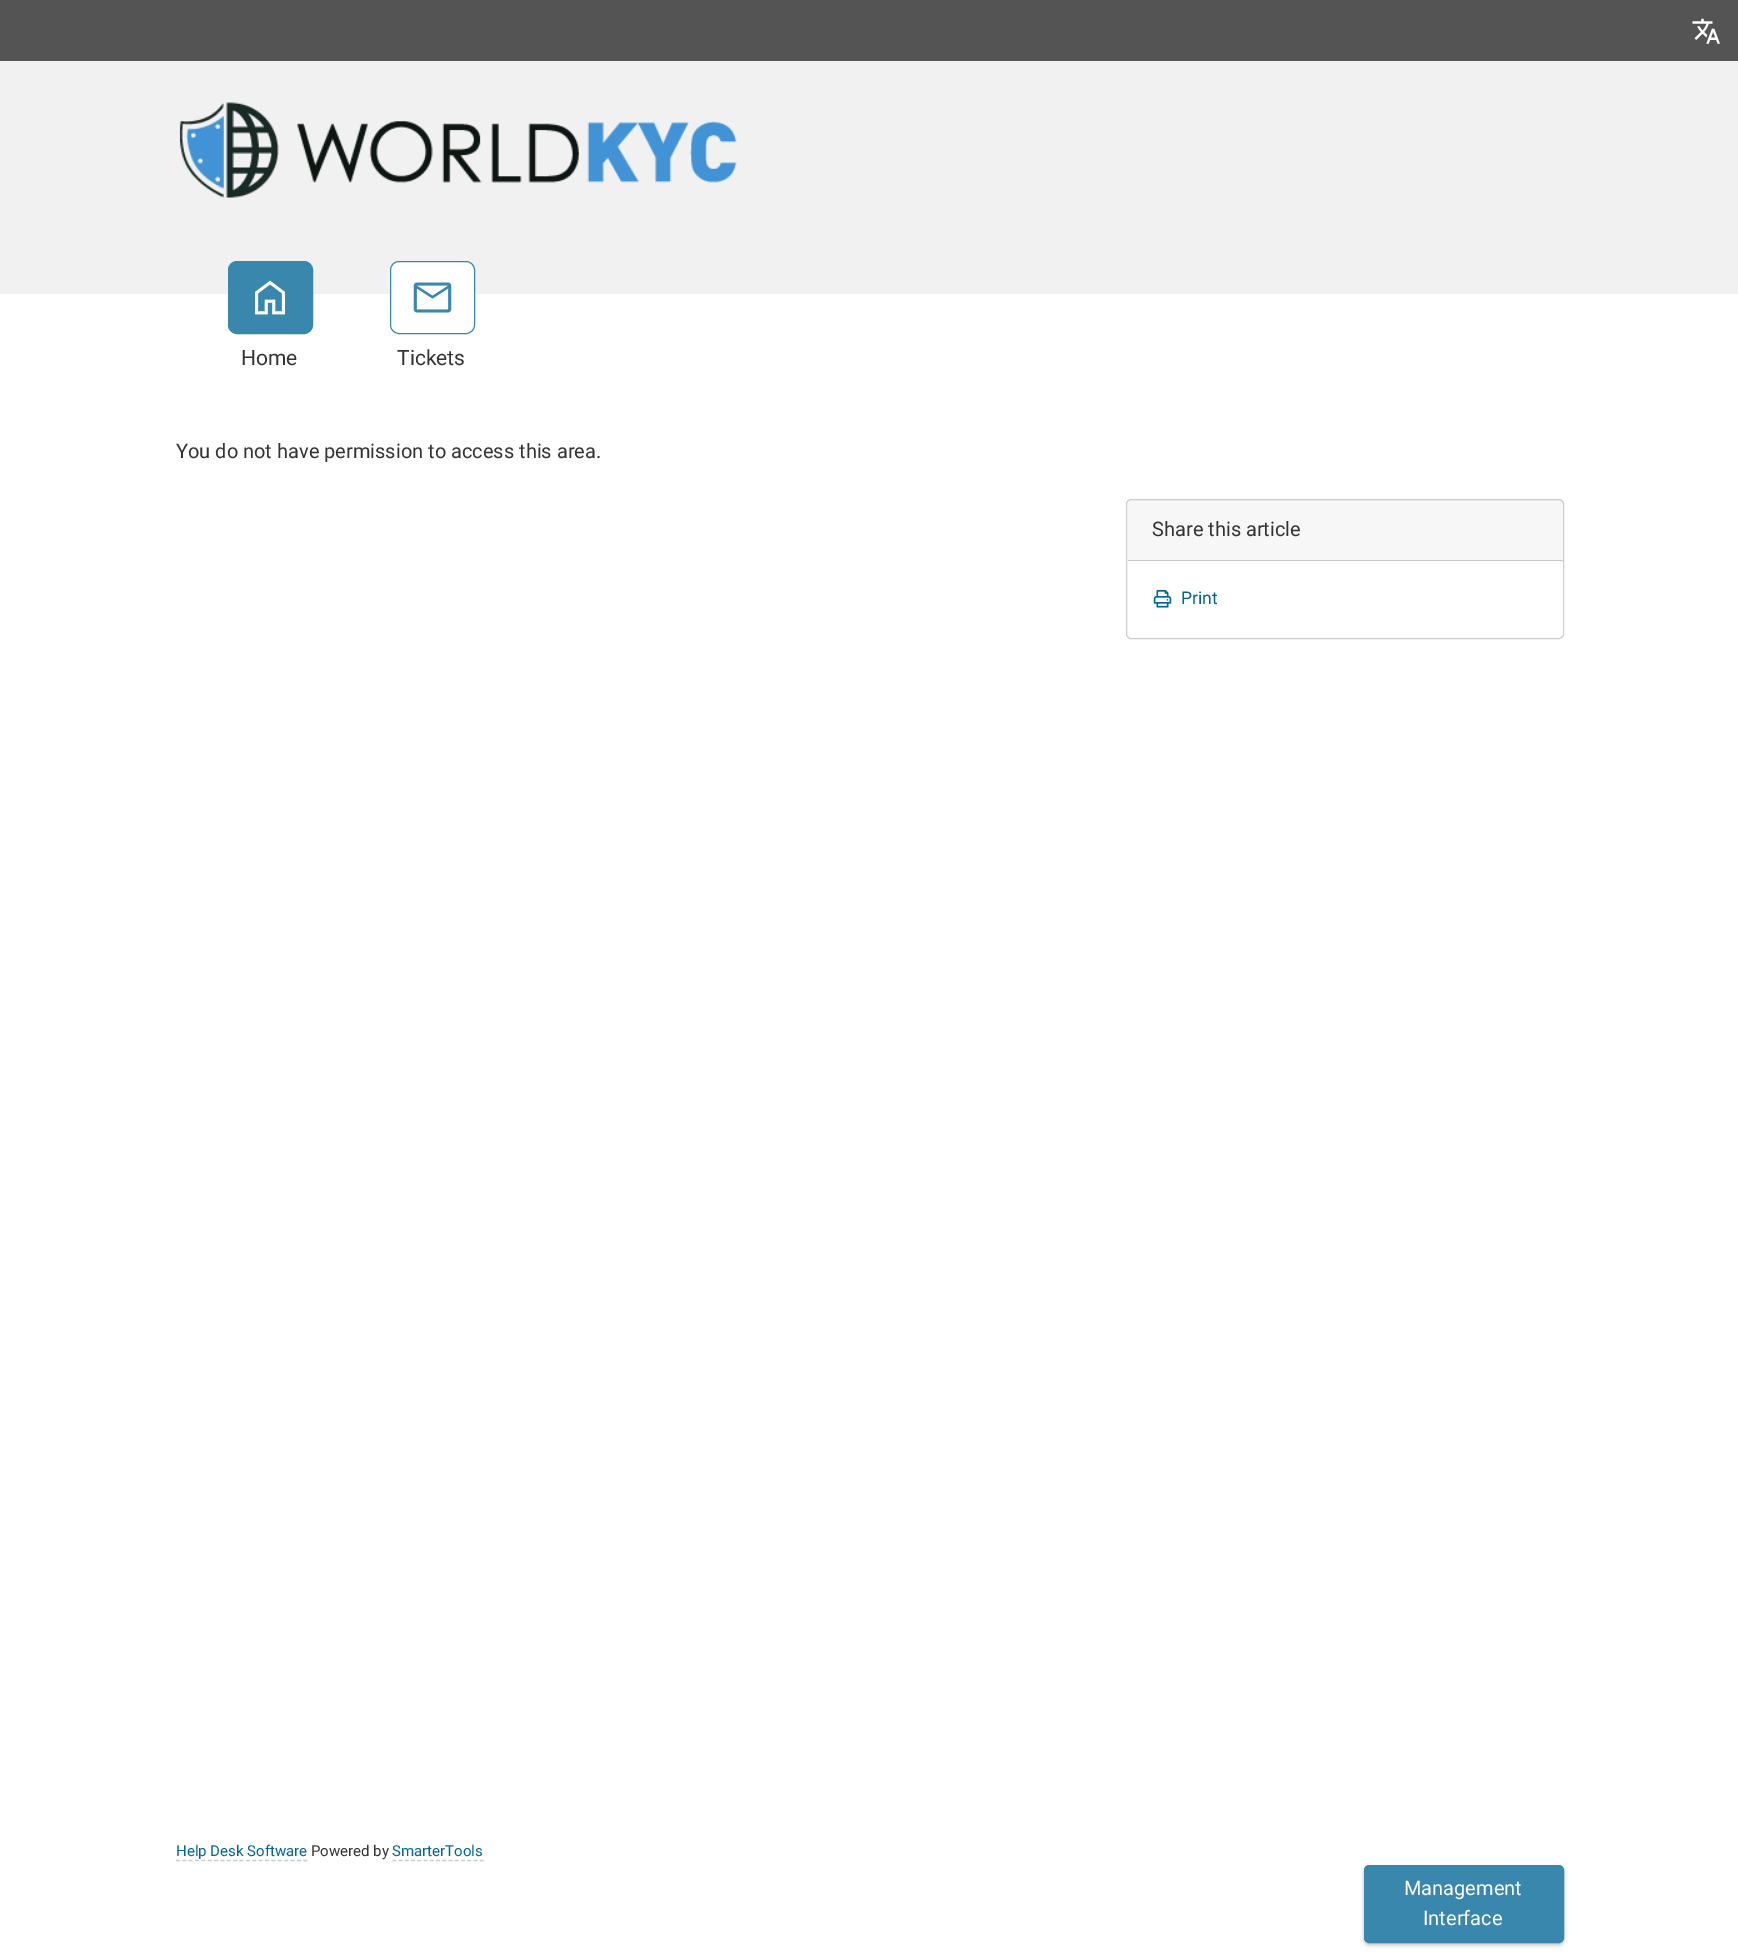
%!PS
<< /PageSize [1738 1958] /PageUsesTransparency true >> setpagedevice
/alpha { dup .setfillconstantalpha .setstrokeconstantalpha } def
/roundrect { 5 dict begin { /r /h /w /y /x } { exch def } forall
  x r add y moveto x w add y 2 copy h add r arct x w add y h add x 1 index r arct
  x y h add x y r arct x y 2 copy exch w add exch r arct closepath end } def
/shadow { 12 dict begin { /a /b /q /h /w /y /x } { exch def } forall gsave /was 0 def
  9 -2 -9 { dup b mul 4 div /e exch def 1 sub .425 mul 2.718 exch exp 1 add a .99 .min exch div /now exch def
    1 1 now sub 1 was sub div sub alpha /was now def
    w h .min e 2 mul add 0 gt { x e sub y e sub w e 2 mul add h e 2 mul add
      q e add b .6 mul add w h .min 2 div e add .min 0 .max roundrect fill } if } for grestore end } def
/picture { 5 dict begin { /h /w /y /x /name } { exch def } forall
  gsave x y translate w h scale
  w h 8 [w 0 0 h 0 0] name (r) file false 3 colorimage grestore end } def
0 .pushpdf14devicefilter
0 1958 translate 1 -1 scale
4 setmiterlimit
1 setgray
0 0 1738 1958 rectfill
0.329 setgray
0 0 1738 61 rectfill
(img1.rgb) 1692 18 28 26 picture
0.945 setgray
0 61 1738 233 rectfill
(img2.rgb) 179 102 558 96 picture
0.227 0.529 0.678 setrgbcolor
228.5 261.5 84 72 8.5 roundrect gsave fill grestore
stroke
(img3.rgb) 255 280 30 35 picture
/Roboto-Regular [21 0 0 -21 0 0] selectfont
0.2 setgray
241 365 moveto (Home) show
1 setgray
390.5 261.5 84 72 8.5 roundrect gsave fill grestore
0.227 0.529 0.678 setrgbcolor
stroke
(img4.rgb) 413 282 39 31 picture
0.2 setgray
397 365 moveto (Tickets) show
/Roboto-Regular [20 0 0 -20 0 0] selectfont
176 458 moveto (You do not have permission to access this area.) show
0.804 setgray
1126.5 499.5 437 139 4.5 roundrect stroke
0.03 alpha
0 setgray
1128 500 435 60 rectfill
1 alpha
0.78 setgray
1128 560 435 1 rectfill
0.2 setgray
1152 536 moveto (Share this article) show
(img5.rgb) 1153 590 19 18 picture
/Roboto-Regular [17.5 0 0 -17.5 0 0] selectfont
0 0.4 0.576 setrgbcolor
1181 604 moveto (Print) show
0.8 setgray
1.2 setlinewidth
[3.75 2.62] 0 setdash
newpath 176 1860.5 moveto 307.5 1860.5 lineto stroke
/Roboto-Regular [15 0 0 -15 0 0] selectfont
0 0.4 0.576 setrgbcolor
176 1856 moveto (Help Desk Software) show
0.2 setgray
311 1856 moveto (Powered by) show
0 0.4 0.576 setrgbcolor
392 1856 moveto (SmarterTools) show
0.8 setgray
[3.75 2.5] 0 setdash
newpath 392.5 1860.5 moveto 484 1860.5 lineto stroke
0 setgray
1364 1868 200 77 5 2 0.25 shadow
0.227 0.529 0.678 setrgbcolor
1364.5 1865.5 199 77 4.5 roundrect gsave fill grestore
1 setlinewidth
[] 0 setdash
stroke
/Roboto-Regular [20 0 0 -20 0 0] selectfont
1 setgray
1404 1895 moveto (Management) show
1423 1925 moveto (Interface) show
.poppdf14devicefilter showpage
